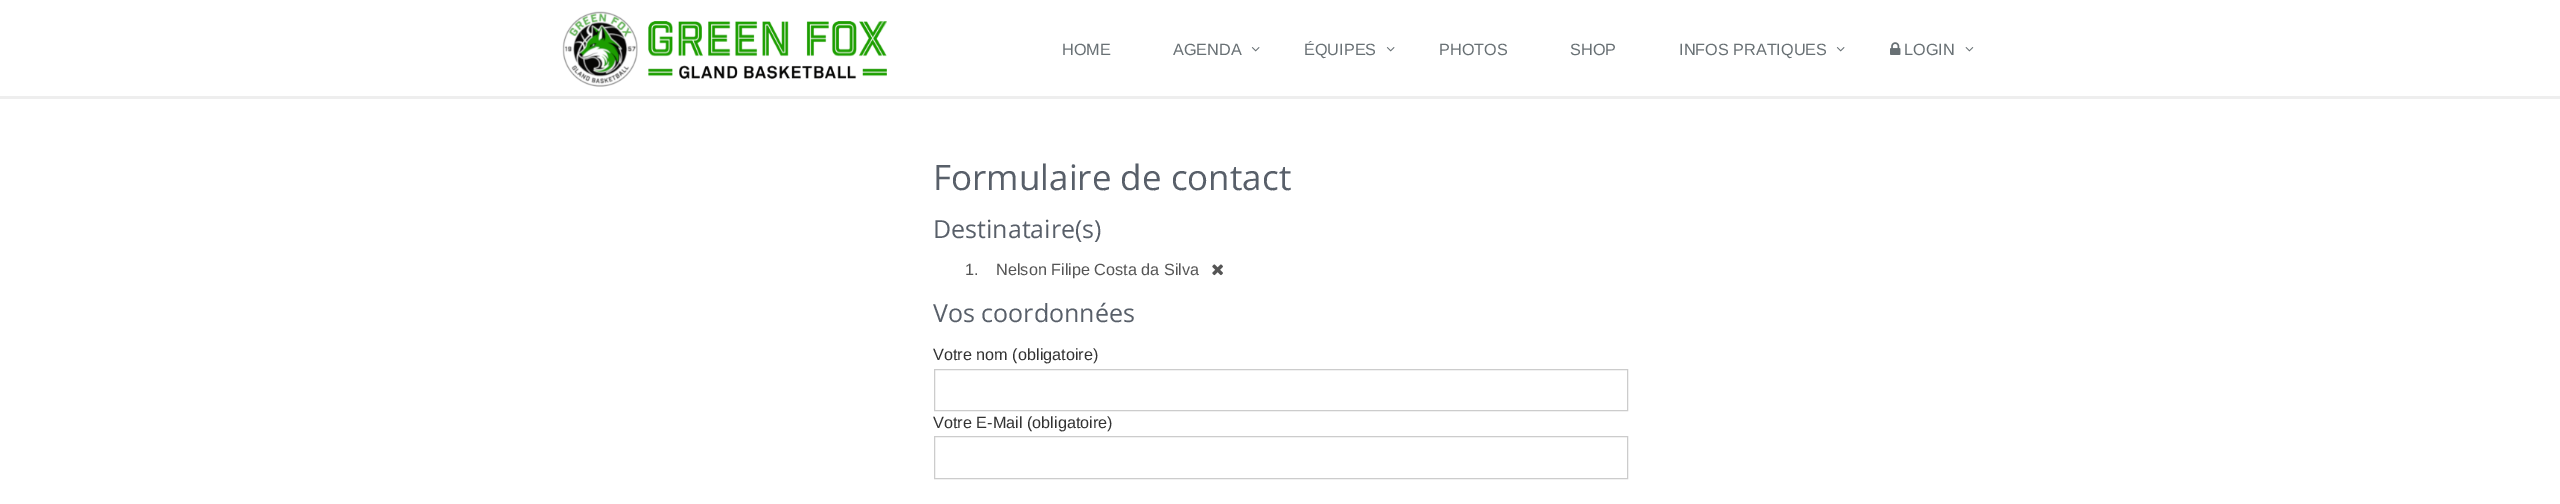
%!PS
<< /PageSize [2560 504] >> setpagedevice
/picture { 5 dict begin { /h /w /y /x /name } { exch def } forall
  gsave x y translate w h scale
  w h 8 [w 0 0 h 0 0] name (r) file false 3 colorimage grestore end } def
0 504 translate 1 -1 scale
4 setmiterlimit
1 setgray
0 0 2560 504 rectfill
0.933 setgray
0 96 2560 3 rectfill
(img1.rgb) 562 11 325 76 picture
/LiberationSans-Regular [16.25 0 0 -16.25 0 0] selectfont
0.408 0.439 0.455 setrgbcolor
1062 55 moveto (HOME) show
1173 55 moveto (AGENDA) show
(img2.rgb) 1251 47 9 5 picture
1304 55 moveto (ÉQUIPES) show
(img2.rgb) 1386 47 9 5 picture
1439 55 moveto (PHOTOS) show
1570 55 moveto (SHOP) show
1679 55 moveto (INFOS PRATIQUES) show
(img2.rgb) 1836 47 9 5 picture
(img3.rgb) 1890 42 11 13 picture
1904 55 moveto (LOGIN) show
(img4.rgb) 1965 47 9 5 picture
/OpenSans-Regular [35 0 0 -35 0 0] selectfont
0.345 0.373 0.412 setrgbcolor
933 190 moveto (Formulaire de contact) show
/OpenSans-Regular [25 0 0 -25 0 0] selectfont
933 238 moveto (Destinataire\(s\)) show
/LiberationSans-Regular [16.25 0 0 -16.25 0 0] selectfont
0.333 setgray
965 275 moveto (1.) show
996 275 moveto (Nelson Filipe Costa da Silva) show
(img5.rgb) 1212 264 11 12 picture
/OpenSans-Regular [25 0 0 -25 0 0] selectfont
0.345 0.373 0.412 setrgbcolor
933 322 moveto (Vos coordonnées) show
/LiberationSans-Regular [16.25 0 0 -16.25 0 0] selectfont
0.2 setgray
933 360 moveto (Votre nom \(obligatoire\)) show
0.8 setgray
934.5 369.5 693 41 rectstroke
0.2 setgray
933 428 moveto (Votre E-Mail \(obligatoire\)) show
0.8 setgray
934.5 436.5 693 42 rectstroke
showpage
